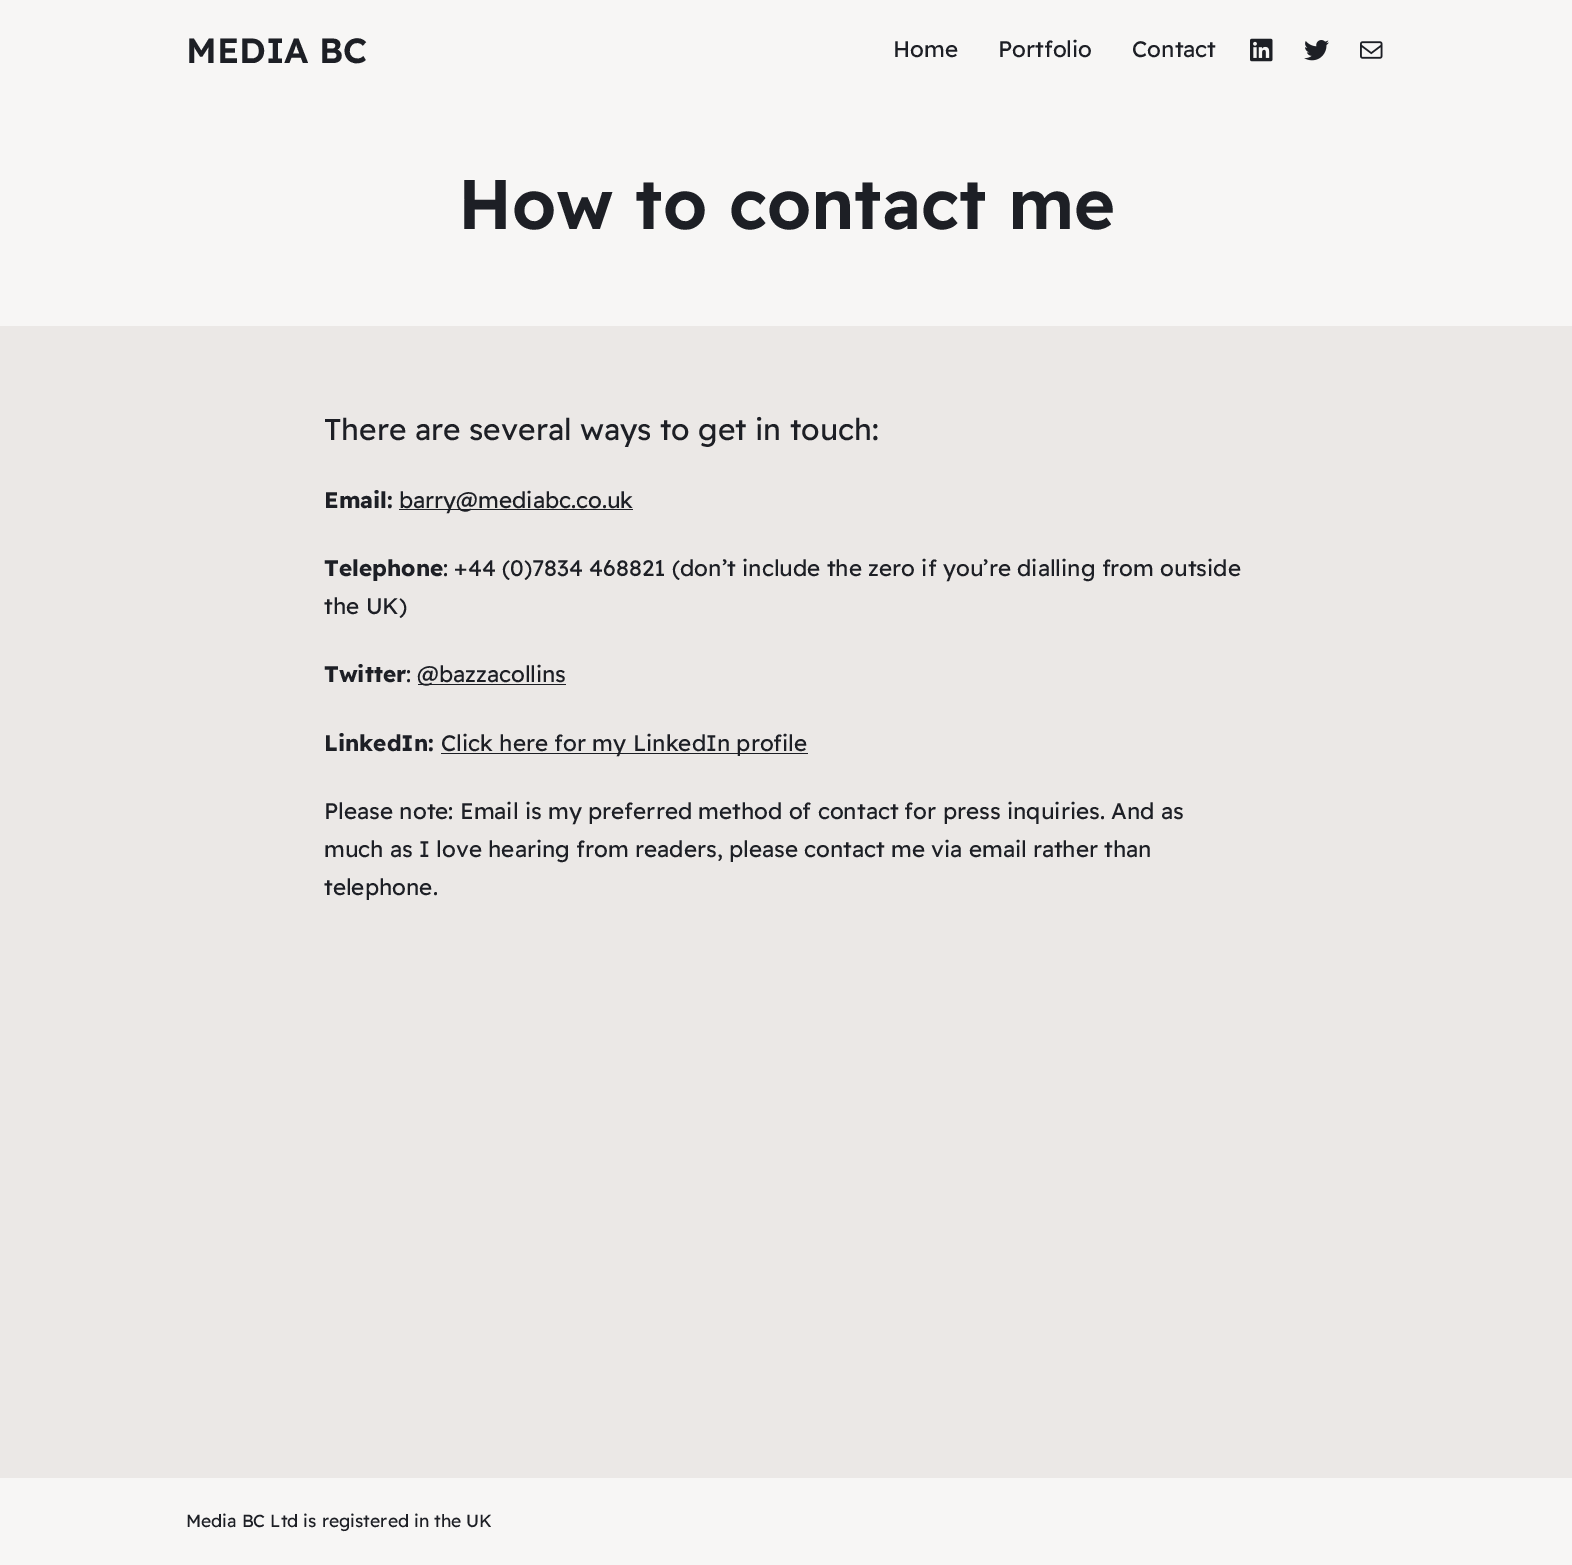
%!PS
<< /PageSize [1572 1565] >> setpagedevice
/picture { 5 dict begin { /h /w /y /x /name } { exch def } forall
  gsave x y translate w h scale
  w h 8 [w 0 0 h 0 0] name (r) file false 3 colorimage grestore end } def
0 1565 translate 1 -1 scale
4 setmiterlimit
0.922 0.91 0.902 setrgbcolor
0 0 1572 1565 rectfill
0.969 0.965 0.961 setrgbcolor
0 0 1572 326 rectfill
/ReadexPro-SemiBold [35 0 0 -35 0 0] selectfont
0.114 0.122 0.145 setrgbcolor
186 63 moveto (MEDIA BC) show
/ReadexPro-Regular [22.5 0 0 -22.5 0 0] selectfont
893 57 moveto (Home) show
998 57 moveto (Portfolio) show
1132 57 moveto (Contact) show
(img1.rgb) 1250 38 23 24 picture
(img2.rgb) 1304 40 25 21 picture
(img3.rgb) 1360 41 23 18 picture
/ReadexPro-SemiBold [70 0 0 -70 0 0] selectfont
458 229 moveto (How to contact me) show
/ReadexPro-Regular [30 0 0 -30 0 0] selectfont
324 440 moveto (There are several ways to get in touch:) show
/ReadexPro-Bold [22.5 0 0 -22.5 0 0] selectfont
324 508 moveto (Email:) show
399 509 234 1 rectfill
/ReadexPro-Regular [22.5 0 0 -22.5 0 0] selectfont
399 508 moveto (barry@mediabc.co.uk) show
/ReadexPro-Bold [22.5 0 0 -22.5 0 0] selectfont
324 576 moveto (Telephone) show
/ReadexPro-Regular [22.5 0 0 -22.5 0 0] selectfont
443 576 moveto (: +44 \(0\)7834 468821 \(don’t include the zero if you’re dialling from outside) show
324 614 moveto (the UK\)) show
/ReadexPro-Bold [22.5 0 0 -22.5 0 0] selectfont
324 682 moveto (Twitter) show
/ReadexPro-Regular [22.5 0 0 -22.5 0 0] selectfont
406 682 moveto (:) show
418 684 148 1 rectfill
417 682 moveto (@bazzacollins) show
/ReadexPro-Bold [22.5 0 0 -22.5 0 0] selectfont
324 751 moveto (LinkedIn:) show
441 753 367 1 rectfill
/ReadexPro-Regular [22.5 0 0 -22.5 0 0] selectfont
441 751 moveto (Click here for my LinkedIn profile) show
324 819 moveto (Please note: Email is my preferred method of contact for press inquiries. And as) show
324 857 moveto (much as I love hearing from readers, please contact me via email rather than) show
324 895 moveto (telephone.) show
0.969 0.965 0.961 setrgbcolor
0 1478 1572 87 rectfill
/ReadexPro-Regular [17.5 0 0 -17.5 0 0] selectfont
0.114 0.122 0.145 setrgbcolor
186 1527 moveto (Media BC Ltd is registered in the UK) show
showpage
